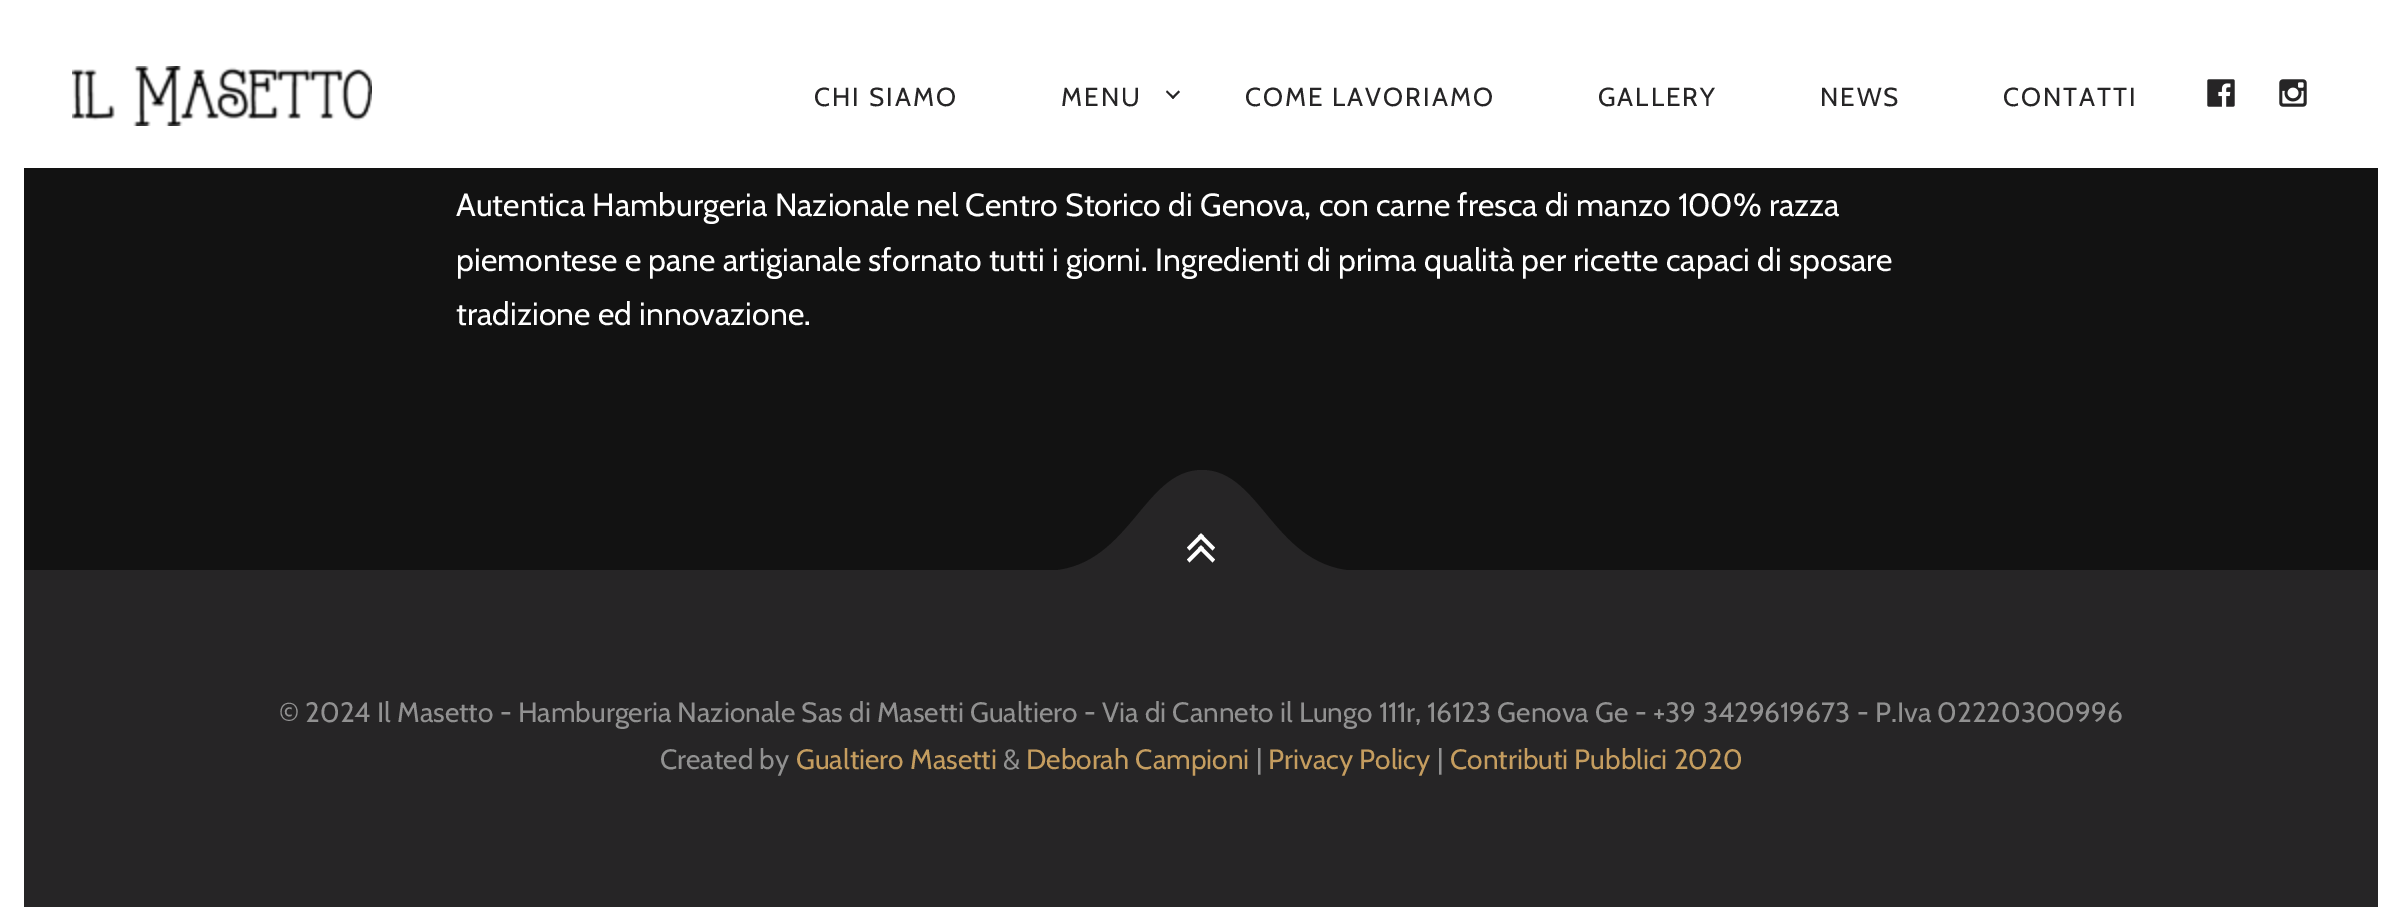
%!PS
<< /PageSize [2401 907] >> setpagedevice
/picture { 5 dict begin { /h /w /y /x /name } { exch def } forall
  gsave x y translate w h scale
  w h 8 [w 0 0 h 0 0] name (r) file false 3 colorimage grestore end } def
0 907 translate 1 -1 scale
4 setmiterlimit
1 setgray
0 0 2401 907 rectfill
(img1.rgb) 72 66 300 60 picture
/Cabin-Regular [26 0 0 -26 0 0] selectfont
0.149 0.145 0.149 setrgbcolor
814 106 moveto 2 0 (CHI SIAMO) ashow
1061 106 moveto 2 0 (MENU) ashow
newpath 1178.5 90.5 moveto 1180 92 lineto 1173 99 lineto 1171.5 97.5 lineto closepath fill
newpath 1167 90.5 moveto 1174.5 97.5 lineto 1173 99 lineto 1166 92 lineto closepath fill
1245 106 moveto 2 0 (COME LAVORIAMO) ashow
1598 106 moveto 2 0 (GALLERY) ashow
1820 106 moveto 2 0 (NEWS) ashow
2003 106 moveto 2 0 (CONTATTI) ashow
(img2.rgb) 2207 79 28 28 picture
(img3.rgb) 2279 79 28 28 picture
0.071 setgray
24 168 2354 402 rectfill
/Cabin-Regular [32 0 0 -32 0 0] selectfont
1 setgray
456 216 moveto (Autentica Hamburgeria Nazionale nel Centro Storico di Genova, con carne fresca di manzo 100% razza) show
456 271 moveto (piemontese e pane artigianale sfornato tutti i giorni. Ingredienti di prima qualità per ricette capaci di sposare) show
456 325 moveto (tradizione ed innovazione.) show
0.149 0.145 0.149 setrgbcolor
24 570 2354 337 rectfill
newpath 1202 592 moveto 1287 581 lineto 1329 576 1369 571 1360 571 curveto 1317 571 1292 545 1271 520 curveto 1250 495 1232 470 1202 470 curveto 1172 470 1154 495 1133 520 curveto 1111 546 1087 571 1044 571 curveto 1035 571 1031 571 1051 573 curveto closepath fill
1 setgray
newpath 1201 533.5 moveto 1215 547.5 lineto 1212.5 550.5 lineto 1198 536 lineto closepath fill
newpath 1201 533.5 moveto 1204 536 lineto 1189.5 550.5 lineto 1187 547.5 lineto closepath fill
newpath 1201 545.5 moveto 1215 559.5 lineto 1212.5 562.5 lineto 1198 548 lineto closepath fill
newpath 1201 545.5 moveto 1204 548 lineto 1189.5 562.5 lineto 1187 559.5 lineto closepath fill
/Cabin-Regular [28 0 0 -28 0 0] selectfont
0.569 setgray
279 722 moveto (© 2024 Il Masetto - Hamburgeria Nazionale Sas di Masetti Gualtiero - Via di Canneto il Lungo 111r, 16123 Genova Ge - +39 3429619673 - P.Iva 02220300996) show
660 769 moveto (Created by) show
0.773 0.616 0.373 setrgbcolor
796 769 moveto (Gualtiero Masetti) show
0.569 setgray
1003 769 moveto (&) show
0.773 0.616 0.373 setrgbcolor
1026 769 moveto (Deborah Campioni) show
0.569 setgray
1256 769 moveto (|) show
0.773 0.616 0.373 setrgbcolor
1268 769 moveto (Privacy Policy) show
0.569 setgray
1437 769 moveto (|) show
0.773 0.616 0.373 setrgbcolor
1450 769 moveto (Contributi Pubblici 2020) show
showpage
